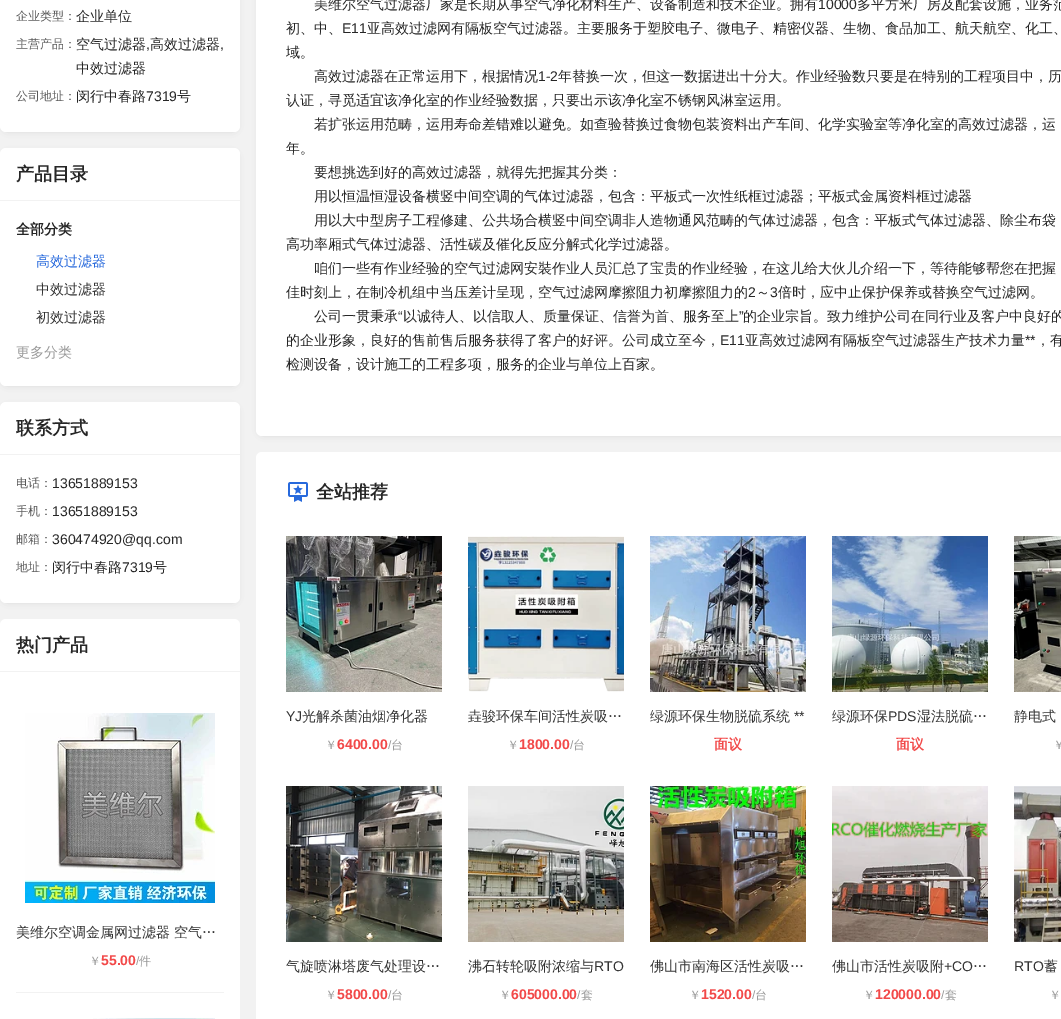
%!PS
<< /PageSize [1061 1019] /PageUsesTransparency true >> setpagedevice
/alpha { dup .setfillconstantalpha .setstrokeconstantalpha } def
/roundrect { 5 dict begin { /r /h /w /y /x } { exch def } forall
  x r add y moveto x w add y 2 copy h add r arct x w add y h add x 1 index r arct
  x y h add x y r arct x y 2 copy exch w add exch r arct closepath end } def
/shadow { 12 dict begin { /a /b /q /h /w /y /x } { exch def } forall gsave /was 0 def
  9 -2 -9 { dup b mul 4 div /e exch def 1 sub .425 mul 2.718 exch exp 1 add a .99 .min exch div /now exch def
    1 1 now sub 1 was sub div sub alpha /was now def
    w h .min e 2 mul add 0 gt { x e sub y e sub w e 2 mul add h e 2 mul add
      q e add b .6 mul add w h .min 2 div e add .min 0 .max roundrect fill } if } for grestore end } def
/picture { 5 dict begin { /h /w /y /x /name } { exch def } forall
  gsave x y translate w h scale
  w h 8 [w 0 0 h 0 0] name (r) file false 3 colorimage grestore end } def
0 .pushpdf14devicefilter
0 1019 translate 1 -1 scale
4 setmiterlimit
0.949 setgray
0 0 1061 1019 rectfill
0 setgray
7 -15 226 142 0 5 0.3 shadow
1 setgray
0 -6 240 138 6 roundrect fill
/WenQuanYiZenHei-Medium [12 0 0 -12 0 0] selectfont
0.349 setgray
16 20 moveto (企业类型：) show
/WenQuanYiZenHei-Medium [14 0 0 -14 0 0] selectfont
0.149 setgray
76 21 moveto (企业单位) show
/WenQuanYiZenHei-Medium [12 0 0 -12 0 0] selectfont
0.349 setgray
16 48 moveto (主营产品：) show
/WenQuanYiZenHei-Medium [14 0 0 -14 0 0] selectfont
0.149 setgray
76 49 moveto (空气过滤器) show
/LiberationSans-Regular [14 0 0 -14 0 0] selectfont
146 49 moveto (,) show
/WenQuanYiZenHei-Medium [14 0 0 -14 0 0] selectfont
150 49 moveto (高效过滤器) show
/LiberationSans-Regular [14 0 0 -14 0 0] selectfont
220 49 moveto (,) show
/WenQuanYiZenHei-Medium [14 0 0 -14 0 0] selectfont
76 73 moveto (中效过滤器) show
/WenQuanYiZenHei-Medium [12 0 0 -12 0 0] selectfont
0.349 setgray
16 100 moveto (公司地址：) show
/WenQuanYiZenHei-Medium [14 0 0 -14 0 0] selectfont
0.149 setgray
76 101 moveto (闵行中春路) show
/LiberationSans-Regular [14 0 0 -14 0 0] selectfont
146 101 moveto (7319) show
/WenQuanYiZenHei-Medium [14 0 0 -14 0 0] selectfont
177 101 moveto (号) show
0 setgray
7 157 226 224 0 5 0.3 shadow
1 setgray
0 148 240 238 6 roundrect fill
0.949 setgray
0 200 240 1 rectfill
/WenQuanYiZenHei-Bold [18 0 0 -18 0 0] selectfont
0.149 setgray
16 180 moveto (产品目录) show
/WenQuanYiZenHei-Bold [14 0 0 -14 0 0] selectfont
16 234 moveto (全部分类) show
/WenQuanYiZenHei-Medium [14 0 0 -14 0 0] selectfont
0.153 0.412 0.863 setrgbcolor
36 266 moveto (高效过滤器) show
0.2 setgray
36 294 moveto (中效过滤器) show
36 322 moveto (初效过滤器) show
0.6 setgray
16 357 moveto (更多分类) show
0 setgray
7 411 226 187 0 5 0.3 shadow
1 setgray
0 402 240 201 6 roundrect fill
0.949 setgray
0 454 240 1 rectfill
/WenQuanYiZenHei-Bold [18 0 0 -18 0 0] selectfont
0.149 setgray
16 434 moveto (联系方式) show
/WenQuanYiZenHei-Medium [12 0 0 -12 0 0] selectfont
0.349 setgray
16 487 moveto (电话：) show
/LiberationSans-Regular [14 0 0 -14 0 0] selectfont
0.149 setgray
52 488 moveto (13651889153) show
/WenQuanYiZenHei-Medium [12 0 0 -12 0 0] selectfont
0.349 setgray
16 515 moveto (手机：) show
/LiberationSans-Regular [14 0 0 -14 0 0] selectfont
0.149 setgray
52 516 moveto (13651889153) show
/WenQuanYiZenHei-Medium [12 0 0 -12 0 0] selectfont
0.349 setgray
16 543 moveto (邮箱：) show
/LiberationSans-Regular [14 0 0 -14 0 0] selectfont
0.149 setgray
52 544 moveto (360474920@qq.com) show
/WenQuanYiZenHei-Medium [12 0 0 -12 0 0] selectfont
0.349 setgray
16 571 moveto (地址：) show
/WenQuanYiZenHei-Medium [14 0 0 -14 0 0] selectfont
0.149 setgray
52 572 moveto (闵行中春路) show
/LiberationSans-Regular [14 0 0 -14 0 0] selectfont
122 572 moveto (7319) show
/WenQuanYiZenHei-Medium [14 0 0 -14 0 0] selectfont
153 572 moveto (号) show
1 setgray
0 619 240 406 6 roundrect fill
0.949 setgray
0 671 240 1 rectfill
/WenQuanYiZenHei-Bold [18 0 0 -18 0 0] selectfont
0.149 setgray
16 651 moveto (热门产品) show
0.949 setgray
16 992 208 1 rectfill
(img1.rgb) 25 713 190 190 picture
/WenQuanYiZenHei-Medium [14 0 0 -14 0 0] selectfont
0.2 setgray
16 937 moveto (美维尔空调金属网过滤器 空气…) show
/WenQuanYiZenHei-Medium [12 0 0 -12 0 0] selectfont
0.6 setgray
89 965 moveto (￥) show
/LiberationSans-Bold [14 0 0 -14 0 0] selectfont
0.949 0.286 0.286 setrgbcolor
101 965 moveto (55.00) show
/LiberationSans-Regular [12 0 0 -12 0 0] selectfont
0.6 setgray
136 965 moveto (/) show
/WenQuanYiZenHei-Medium [12 0 0 -12 0 0] selectfont
139 965 moveto (件) show
(img2.rgb) 93 1018 122 1 picture
0 setgray
263 -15 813 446 0 5 0.3 shadow
1 setgray
256 -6 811 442 6 roundrect fill
/WenQuanYiZenHei-Medium [14 0 0 -14 0 0] selectfont
0.149 setgray
314 9 moveto (美维尔空气过滤器厂家是长期从事空气净化材料生产、设备制造和技术企业。拥有) show
/LiberationSans-Regular [14 0 0 -14 0 0] selectfont
818 9 moveto (10000) show
/WenQuanYiZenHei-Medium [14 0 0 -14 0 0] selectfont
857 9 moveto (多平方米厂房及配套设施，业务范) show
286 33 moveto (初、中、) show
/LiberationSans-Regular [14 0 0 -14 0 0] selectfont
342 33 moveto (E11) show
/WenQuanYiZenHei-Medium [14 0 0 -14 0 0] selectfont
367 33 moveto (亚高效过滤网有隔板空气过滤器。主要服务于塑胶电子、微电子、精密仪器、生物、食品加工、航天航空、化工、) show
286 57 moveto (域。) show
314 81 moveto (高效过滤器在正常运用下，根据情况) show
/LiberationSans-Regular [14 0 0 -14 0 0] selectfont
538 81 moveto (1-2) show
/WenQuanYiZenHei-Medium [14 0 0 -14 0 0] selectfont
558 81 moveto (年替换一次，但这一数据进出十分大。作业经验数只要是在特别的工程项目中，历) show
286 105 moveto (认证，寻觅适宜该净化室的作业经验数据，只要出示该净化室不锈钢风淋室运用。) show
314 129 moveto (若扩张运用范畴，运用寿命差错难以避免。如查验替换过食物包装资料出产车间、化学实验室等净化室的高效过滤器，运) show
286 153 moveto (年。) show
314 177 moveto (要想挑选到好的高效过滤器，就得先把握其分类：) show
314 201 moveto (用以恒温恒湿设备横竖中间空调的气体过滤器，包含：平板式一次性纸框过滤器；平板式金属资料框过滤器) show
314 225 moveto (用以大中型房子工程修建、公共场合横竖中间空调非人造物通风范畴的气体过滤器，包含：平板式气体过滤器、除尘布袋) show
286 249 moveto (高功率厢式气体过滤器、活性碳及催化反应分解式化学过滤器。) show
314 273 moveto (咱们一些有作业经验的空气过滤网安裝作业人员汇总了宝贵的作业经验，在这儿给大伙儿介绍一下，等待能够帮您在把握) show
286 297 moveto (佳时刻上，在制冷机组中当压差计呈现，空气过滤网摩擦阻力初摩擦阻力的) show
/LiberationSans-Regular [14 0 0 -14 0 0] selectfont
748 297 moveto (2) show
/WenQuanYiZenHei-Medium [14 0 0 -14 0 0] selectfont
756 297 moveto (～) show
/LiberationSans-Regular [14 0 0 -14 0 0] selectfont
770 297 moveto (3) show
/WenQuanYiZenHei-Medium [14 0 0 -14 0 0] selectfont
778 297 moveto (倍时，应中止保护保养或替换空气过滤网。) show
314 321 moveto (公司一贯秉承) show
/LiberationSans-Regular [14 0 0 -14 0 0] selectfont
398 321 moveto (“) show
/WenQuanYiZenHei-Medium [14 0 0 -14 0 0] selectfont
403 321 moveto (以诚待人、以信取人、质量保证、信誉为首、服务至上) show
/LiberationSans-Regular [14 0 0 -14 0 0] selectfont
739 321 moveto (”) show
/WenQuanYiZenHei-Medium [14 0 0 -14 0 0] selectfont
743 321 moveto (的企业宗旨。致力维护公司在同行业及客户中良好的) show
286 345 moveto (的企业形象，良好的售前售后服务获得了客户的好评。公司成立至今，) show
/LiberationSans-Regular [14 0 0 -14 0 0] selectfont
720 345 moveto (E11) show
/WenQuanYiZenHei-Medium [14 0 0 -14 0 0] selectfont
745 345 moveto (亚高效过滤网有隔板空气过滤器生产技术力量) show
/LiberationSans-Regular [14 0 0 -14 0 0] selectfont
1025 345 moveto (**) show
/WenQuanYiZenHei-Medium [14 0 0 -14 0 0] selectfont
1036 345 moveto (，有) show
286 369 moveto (检测设备，设计施工的工程多项，服务的企业与单位上百家。) show
1 setgray
256 452 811 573 6 roundrect fill
(img3.rgb) 288 482 20 20 picture
/WenQuanYiZenHei-Bold [18 0 0 -18 0 0] selectfont
0.149 setgray
316 498 moveto (全站推荐) show
(img4.rgb) 286 536 156 156 picture
/LiberationSans-Regular [14 0 0 -14 0 0] selectfont
0.2 setgray
286 721 moveto (YJ) show
/WenQuanYiZenHei-Medium [14 0 0 -14 0 0] selectfont
302 721 moveto (光解杀菌油烟净化器) show
/WenQuanYiZenHei-Medium [12 0 0 -12 0 0] selectfont
0.6 setgray
325 749 moveto (￥) show
/LiberationSans-Bold [14 0 0 -14 0 0] selectfont
0.949 0.286 0.286 setrgbcolor
337 749 moveto (6400.00) show
/LiberationSans-Regular [12 0 0 -12 0 0] selectfont
0.6 setgray
388 749 moveto (/) show
/WenQuanYiZenHei-Medium [12 0 0 -12 0 0] selectfont
391 749 moveto (台) show
(img5.rgb) 468 536 156 156 picture
/WenQuanYiZenHei-Medium [14 0 0 -14 0 0] selectfont
0.2 setgray
468 721 moveto (垚骏环保车间活性炭吸…) show
/WenQuanYiZenHei-Medium [12 0 0 -12 0 0] selectfont
0.6 setgray
507 749 moveto (￥) show
/LiberationSans-Bold [14 0 0 -14 0 0] selectfont
0.949 0.286 0.286 setrgbcolor
519 749 moveto (1800.00) show
/LiberationSans-Regular [12 0 0 -12 0 0] selectfont
0.6 setgray
570 749 moveto (/) show
/WenQuanYiZenHei-Medium [12 0 0 -12 0 0] selectfont
573 749 moveto (台) show
(img6.rgb) 650 536 156 156 picture
/WenQuanYiZenHei-Medium [14 0 0 -14 0 0] selectfont
0.2 setgray
650 721 moveto (绿源环保生物脱硫系统) show
/LiberationSans-Regular [14 0 0 -14 0 0] selectfont
794 721 moveto (**) show
/WenQuanYiZenHei-Bold [14 0 0 -14 0 0] selectfont
0.949 0.286 0.286 setrgbcolor
714 749 moveto (面议) show
(img7.rgb) 832 536 156 156 picture
/WenQuanYiZenHei-Medium [14 0 0 -14 0 0] selectfont
0.2 setgray
832 721 moveto (绿源环保) show
/LiberationSans-Regular [14 0 0 -14 0 0] selectfont
888 721 moveto (PDS) show
/WenQuanYiZenHei-Medium [14 0 0 -14 0 0] selectfont
917 721 moveto (湿法脱硫…) show
/WenQuanYiZenHei-Bold [14 0 0 -14 0 0] selectfont
0.949 0.286 0.286 setrgbcolor
896 749 moveto (面议) show
(img8.rgb) 1014 536 47 156 picture
/WenQuanYiZenHei-Medium [14 0 0 -14 0 0] selectfont
0.2 setgray
1014 721 moveto (静电式) show
/WenQuanYiZenHei-Medium [12 0 0 -12 0 0] selectfont
0.6 setgray
1053 749 moveto (￥) show
(img9.rgb) 286 786 156 156 picture
/WenQuanYiZenHei-Medium [14 0 0 -14 0 0] selectfont
0.2 setgray
286 971 moveto (气旋喷淋塔废气处理设…) show
/WenQuanYiZenHei-Medium [12 0 0 -12 0 0] selectfont
0.6 setgray
325 999 moveto (￥) show
/LiberationSans-Bold [14 0 0 -14 0 0] selectfont
0.949 0.286 0.286 setrgbcolor
337 999 moveto (5800.00) show
/LiberationSans-Regular [12 0 0 -12 0 0] selectfont
0.6 setgray
388 999 moveto (/) show
/WenQuanYiZenHei-Medium [12 0 0 -12 0 0] selectfont
391 999 moveto (台) show
(img10.rgb) 468 786 156 156 picture
/WenQuanYiZenHei-Medium [14 0 0 -14 0 0] selectfont
0.2 setgray
468 971 moveto (沸石转轮吸附浓缩与) show
/LiberationSans-Regular [14 0 0 -14 0 0] selectfont
594 971 moveto (RTO) show
/WenQuanYiZenHei-Medium [12 0 0 -12 0 0] selectfont
0.6 setgray
499 999 moveto (￥) show
/LiberationSans-Bold [14 0 0 -14 0 0] selectfont
0.949 0.286 0.286 setrgbcolor
511 999 moveto (605000.00) show
/LiberationSans-Regular [12 0 0 -12 0 0] selectfont
0.6 setgray
577 999 moveto (/) show
/WenQuanYiZenHei-Medium [12 0 0 -12 0 0] selectfont
581 999 moveto (套) show
(img11.rgb) 650 786 156 156 picture
/WenQuanYiZenHei-Medium [14 0 0 -14 0 0] selectfont
0.2 setgray
650 971 moveto (佛山市南海区活性炭吸…) show
/WenQuanYiZenHei-Medium [12 0 0 -12 0 0] selectfont
0.6 setgray
689 999 moveto (￥) show
/LiberationSans-Bold [14 0 0 -14 0 0] selectfont
0.949 0.286 0.286 setrgbcolor
701 999 moveto (1520.00) show
/LiberationSans-Regular [12 0 0 -12 0 0] selectfont
0.6 setgray
752 999 moveto (/) show
/WenQuanYiZenHei-Medium [12 0 0 -12 0 0] selectfont
755 999 moveto (台) show
(img12.rgb) 832 786 156 156 picture
/WenQuanYiZenHei-Medium [14 0 0 -14 0 0] selectfont
0.2 setgray
832 971 moveto (佛山市活性炭吸附) show
/LiberationSans-Regular [14 0 0 -14 0 0] selectfont
944 971 moveto (+CO) show
/WenQuanYiZenHei-Medium [14 0 0 -14 0 0] selectfont
973 971 moveto (…) show
/WenQuanYiZenHei-Medium [12 0 0 -12 0 0] selectfont
0.6 setgray
863 999 moveto (￥) show
/LiberationSans-Bold [14 0 0 -14 0 0] selectfont
0.949 0.286 0.286 setrgbcolor
875 999 moveto (120000.00) show
/LiberationSans-Regular [12 0 0 -12 0 0] selectfont
0.6 setgray
941 999 moveto (/) show
/WenQuanYiZenHei-Medium [12 0 0 -12 0 0] selectfont
945 999 moveto (套) show
(img13.rgb) 1014 786 47 156 picture
/LiberationSans-Regular [14 0 0 -14 0 0] selectfont
0.2 setgray
1014 971 moveto (RTO) show
/WenQuanYiZenHei-Medium [14 0 0 -14 0 0] selectfont
1044 971 moveto (蓄) show
/WenQuanYiZenHei-Medium [12 0 0 -12 0 0] selectfont
0.6 setgray
1049 999 moveto (￥) show
.poppdf14devicefilter showpage
